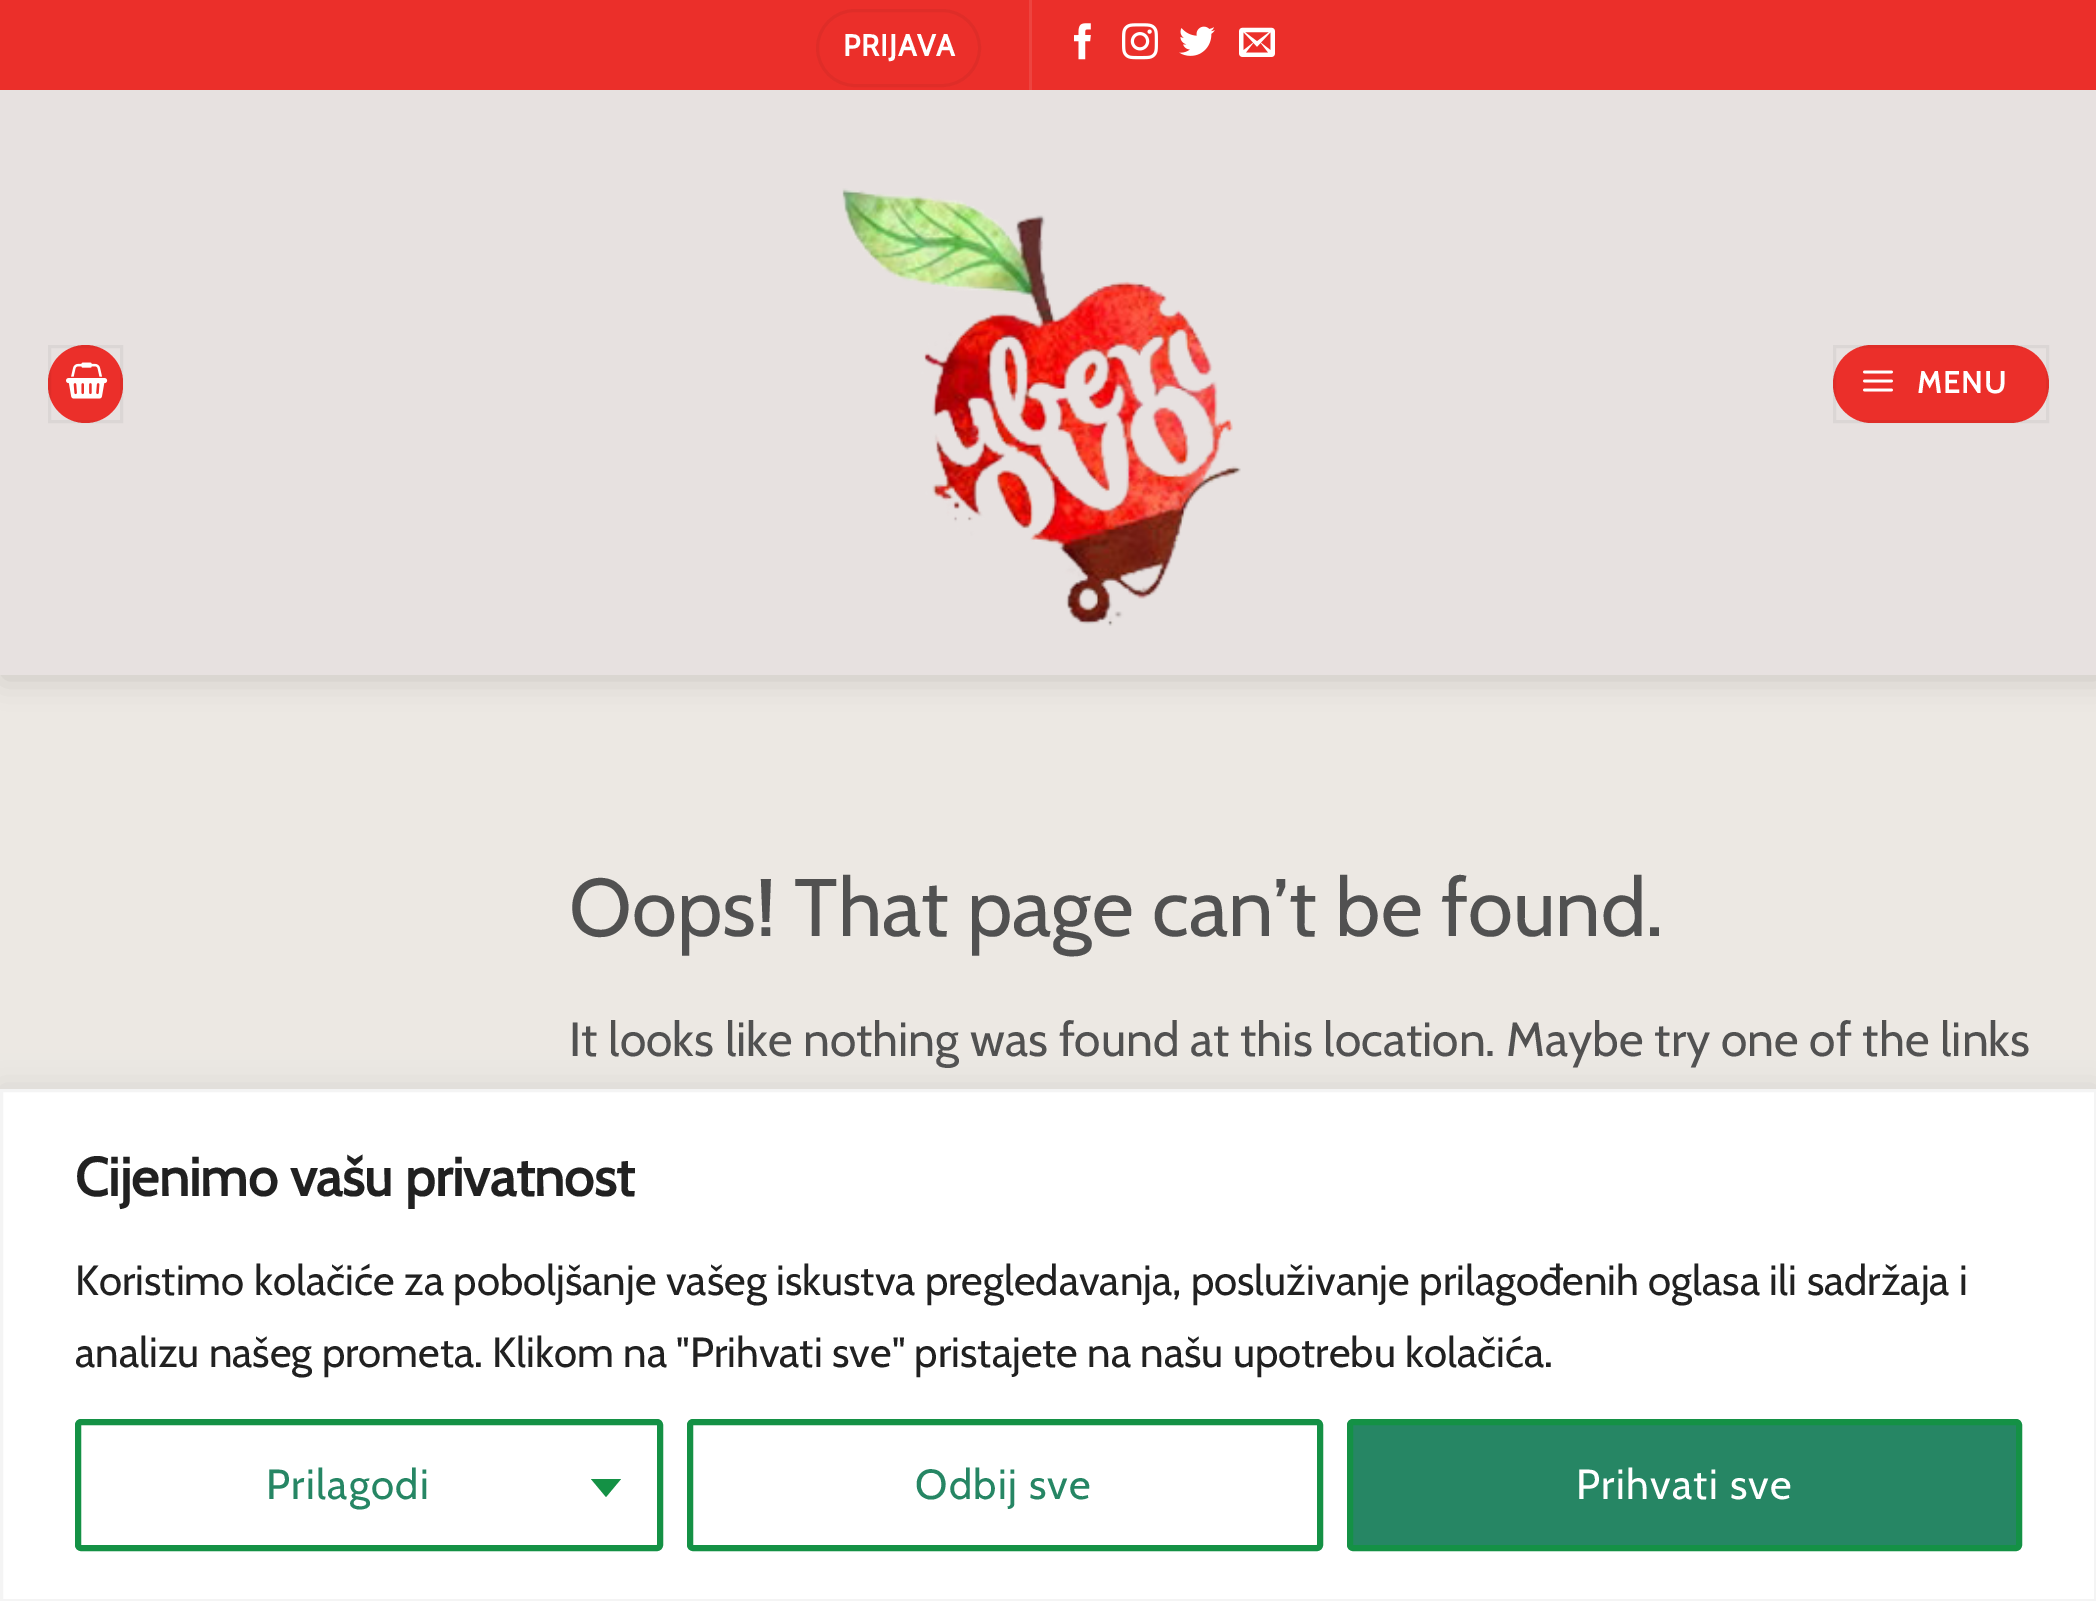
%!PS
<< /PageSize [2096 1601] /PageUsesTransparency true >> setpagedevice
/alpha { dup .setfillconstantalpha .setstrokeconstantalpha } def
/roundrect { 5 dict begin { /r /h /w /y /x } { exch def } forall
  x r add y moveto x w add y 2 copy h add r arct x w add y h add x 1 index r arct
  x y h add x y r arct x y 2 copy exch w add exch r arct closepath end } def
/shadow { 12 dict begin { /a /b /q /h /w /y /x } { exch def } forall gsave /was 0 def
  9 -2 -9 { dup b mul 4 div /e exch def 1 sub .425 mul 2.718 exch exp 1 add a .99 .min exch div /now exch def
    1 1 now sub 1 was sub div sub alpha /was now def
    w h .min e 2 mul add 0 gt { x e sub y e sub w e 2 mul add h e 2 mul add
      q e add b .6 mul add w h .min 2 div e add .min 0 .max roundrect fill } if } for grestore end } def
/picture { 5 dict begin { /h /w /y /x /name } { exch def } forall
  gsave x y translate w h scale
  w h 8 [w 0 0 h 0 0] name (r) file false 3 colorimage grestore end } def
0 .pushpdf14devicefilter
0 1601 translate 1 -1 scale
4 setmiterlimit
0.925 0.91 0.89 setrgbcolor
0 0 2096 1601 rectfill
0 setgray
3 3 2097 675 0 15 0.15 shadow
0.922 0.184 0.165 setrgbcolor
0 0 2096 90 rectfill
0.875 0.176 0.157 setrgbcolor
3 setlinewidth
817.5 10.5 162 75 37.5 roundrect stroke
/Cabin-Bold [30 0 0 -30 0 0] selectfont
1 setgray
843 56 moveto 1 0 (PRIJAVA) ashow
0.929 0.267 0.247 setrgbcolor
1029 0 3 90 rectfill
(img1.rgb) 1074 23 17 37 picture
(img2.rgb) 1122 23 36 37 picture
(img3.rgb) 1179 26 36 30 picture
(img4.rgb) 1239 27 36 30 picture
0.906 0.882 0.878 setrgbcolor
0 90 2096 585 rectfill
0.922 0.184 0.165 setrgbcolor
48 345 75 78 37.5 roundrect fill
0.05 alpha
0 setgray
49.5 346.5 72 75 rectstroke
1 alpha
(img5.rgb) 66 362 42 37 picture
(img6.rgb) 842 188 399 438 picture
0.922 0.184 0.165 setrgbcolor
1833 345 216 78 39 roundrect fill
0.05 alpha
0 setgray
1834.5 346.5 213 75 rectstroke
1 alpha
(img7.rgb) 1863 370 30 22 picture
1 setgray
1917 393 moveto 1.5 0 (MENU) ashow
/Cabin-Regular [81.6 0 0 -81.6 0 0] selectfont
0.318 setgray
569 936 moveto (Oops! That page can’t be found.) show
/Cabin-Regular [48 0 0 -48 0 0] selectfont
569 1056 moveto (It looks like nothing was found at this location. Maybe try one of the links) show
0.675 0.671 0.671 setrgbcolor
0 1086 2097 513 0 15 0.3 shadow
1 setgray
newpath 1.5 1090.5 moveto 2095.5 1090.5 lineto 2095.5 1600.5 lineto 1.5 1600.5 lineto closepath gsave fill grestore
0.957 setgray
stroke
/Cabin-Bold [54 0 0 -54 0 0] selectfont
0.129 setgray
75 1196 moveto (Cijenimo vašu privatnost) show
/Cabin-Regular [42 0 0 -42 0 0] selectfont
75 1295 moveto (Koristimo kolačiće za poboljšanje vašeg iskustva pregledavanja, posluživanje prilagođenih oglasa ili sadržaja i) show
75 1367 moveto (analizu našeg prometa. Klikom na "Prihvati sve" pristajete na našu upotrebu kolačića.) show
0.078 0.569 0.271 setrgbcolor
6 setlinewidth
78 1422 582 126 3 roundrect stroke
0.149 0.525 0.392 setrgbcolor
266 1499 moveto 1.25 0 (Prilagodi) ashow
0.078 0.569 0.271 setrgbcolor
newpath 591 1479 moveto 621 1479 lineto 606 1497 lineto closepath fill
690 1422 630 126 3 roundrect stroke
0.149 0.525 0.392 setrgbcolor
915 1499 moveto 1.25 0 (Odbij sve) ashow
1350 1422 669 126 3 roundrect gsave fill grestore
0.078 0.569 0.271 setrgbcolor
stroke
1 setgray
1576 1499 moveto 1.25 0 (Prihvati sve) ashow
.poppdf14devicefilter showpage
